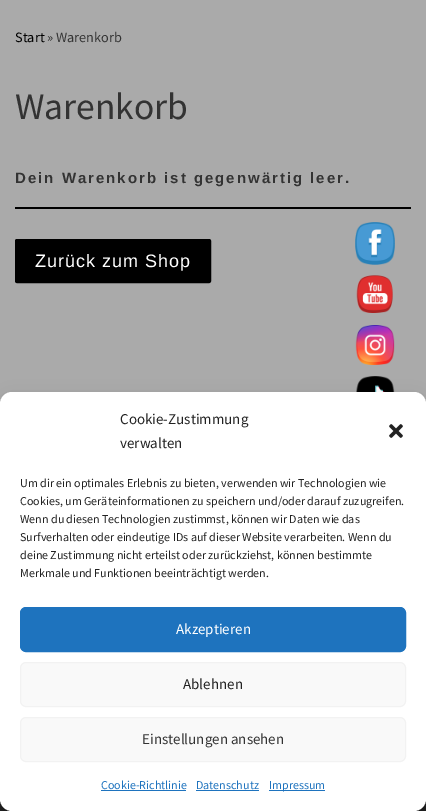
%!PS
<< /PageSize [426 811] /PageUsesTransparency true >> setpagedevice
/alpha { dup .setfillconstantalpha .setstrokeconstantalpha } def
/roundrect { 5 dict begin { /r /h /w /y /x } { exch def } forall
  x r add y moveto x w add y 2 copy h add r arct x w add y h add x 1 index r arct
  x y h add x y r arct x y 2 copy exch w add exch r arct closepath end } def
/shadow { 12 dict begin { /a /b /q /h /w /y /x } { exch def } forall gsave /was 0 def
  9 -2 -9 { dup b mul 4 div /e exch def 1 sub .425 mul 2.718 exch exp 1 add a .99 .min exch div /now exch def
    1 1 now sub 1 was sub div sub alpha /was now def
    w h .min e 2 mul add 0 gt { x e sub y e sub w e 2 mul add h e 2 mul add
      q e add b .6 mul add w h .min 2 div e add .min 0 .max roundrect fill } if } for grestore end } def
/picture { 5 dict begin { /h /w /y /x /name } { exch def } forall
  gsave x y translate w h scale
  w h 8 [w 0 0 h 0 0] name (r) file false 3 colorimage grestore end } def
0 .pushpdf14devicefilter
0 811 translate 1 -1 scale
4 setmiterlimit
0.667 setgray
0 0 426 811 rectfill
/SourceSansPro-Regular [14.25 0 0 -14.25 0 0] selectfont
0 setgray
15 42 moveto (Start) show
0.2 setgray
47 42 moveto (» Warenkorb) show
/SourceSansPro-Regular [37.5 0 0 -37.5 0 0] selectfont
15 119 moveto (Warenkorb) show
0 setgray
15 207 396 2 rectfill
/LiberationSans-Bold [15 0 0 -15 0 0] selectfont
0.2 setgray
15 183 moveto 2 0 (Dein Warenkorb ist gegenwärtig leer.) ashow
0 setgray
16 240 194 42 1 roundrect gsave fill grestore
2 setlinewidth
stroke
/LiberationSans-Regular [18 0 0 -18 0 0] selectfont
1 setgray
35 267 moveto 1 0 (Zurück zum Shop) ashow
0.141 setgray
0 799 426 12 rectfill
(img1.rgb) 355 222 40 43 picture
(img2.rgb) 356 275 37 38 picture
(img3.rgb) 355 325 40 40 picture
(img4.rgb) 356 376 39 16 picture
0 setgray
0 398 426 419 12 3 0.23 shadow
0 402 426 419 12 10 0.19 shadow
1 setgray
0 392 426 419 12 roundrect fill
/SourceSansPro-Regular [15 0 0 -15 0 0] selectfont
0.133 setgray
120 424 moveto (Cookie-Zustimmung) show
120 448 moveto (verwalten) show
(img5.rgb) 389 424 14 14 picture
/SourceSansPro-Regular [12 0 0 -12 0 0] selectfont
20 487 moveto (Um dir ein optimales Erlebnis zu bieten, verwenden wir Technologien wie) show
20 505 moveto (Cookies, um Geräteinformationen zu speichern und/oder darauf zuzugreifen.) show
20 523 moveto (Wenn du diesen Technologien zustimmst, können wir Daten wie das) show
20 541 moveto (Surfverhalten oder eindeutige IDs auf dieser Website verarbeiten. Wenn du) show
20 559 moveto (deine Zustimmung nicht erteilst oder zurückziehst, können bestimmte) show
20 577 moveto (Merkmale und Funktionen beeinträchtigt werden.) show
0.118 0.451 0.745 setrgbcolor
20.5 607.5 385 44 5.5 roundrect gsave fill grestore
1 setlinewidth
stroke
/SourceSansPro-Regular [15 0 0 -15 0 0] selectfont
1 setgray
176 634 moveto (Akzeptieren) show
0.976 setgray
20.5 662.5 385 44 5.5 roundrect gsave fill grestore
0.949 setgray
stroke
0.133 setgray
183 689 moveto (Ablehnen) show
0.976 setgray
20.5 717.5 385 44 5.5 roundrect gsave fill grestore
0.949 setgray
stroke
0.2 setgray
142 744 moveto (Einstellungen ansehen) show
/SourceSansPro-Regular [12 0 0 -12 0 0] selectfont
0.118 0.451 0.745 setrgbcolor
101 789 moveto (Cookie-Richtlinie) show
101 790 85 1 rectfill
196 789 moveto (Datenschutz) show
196 790 63 1 rectfill
269 790 56 1 rectfill
269 789 moveto (Impressum) show
.poppdf14devicefilter showpage
